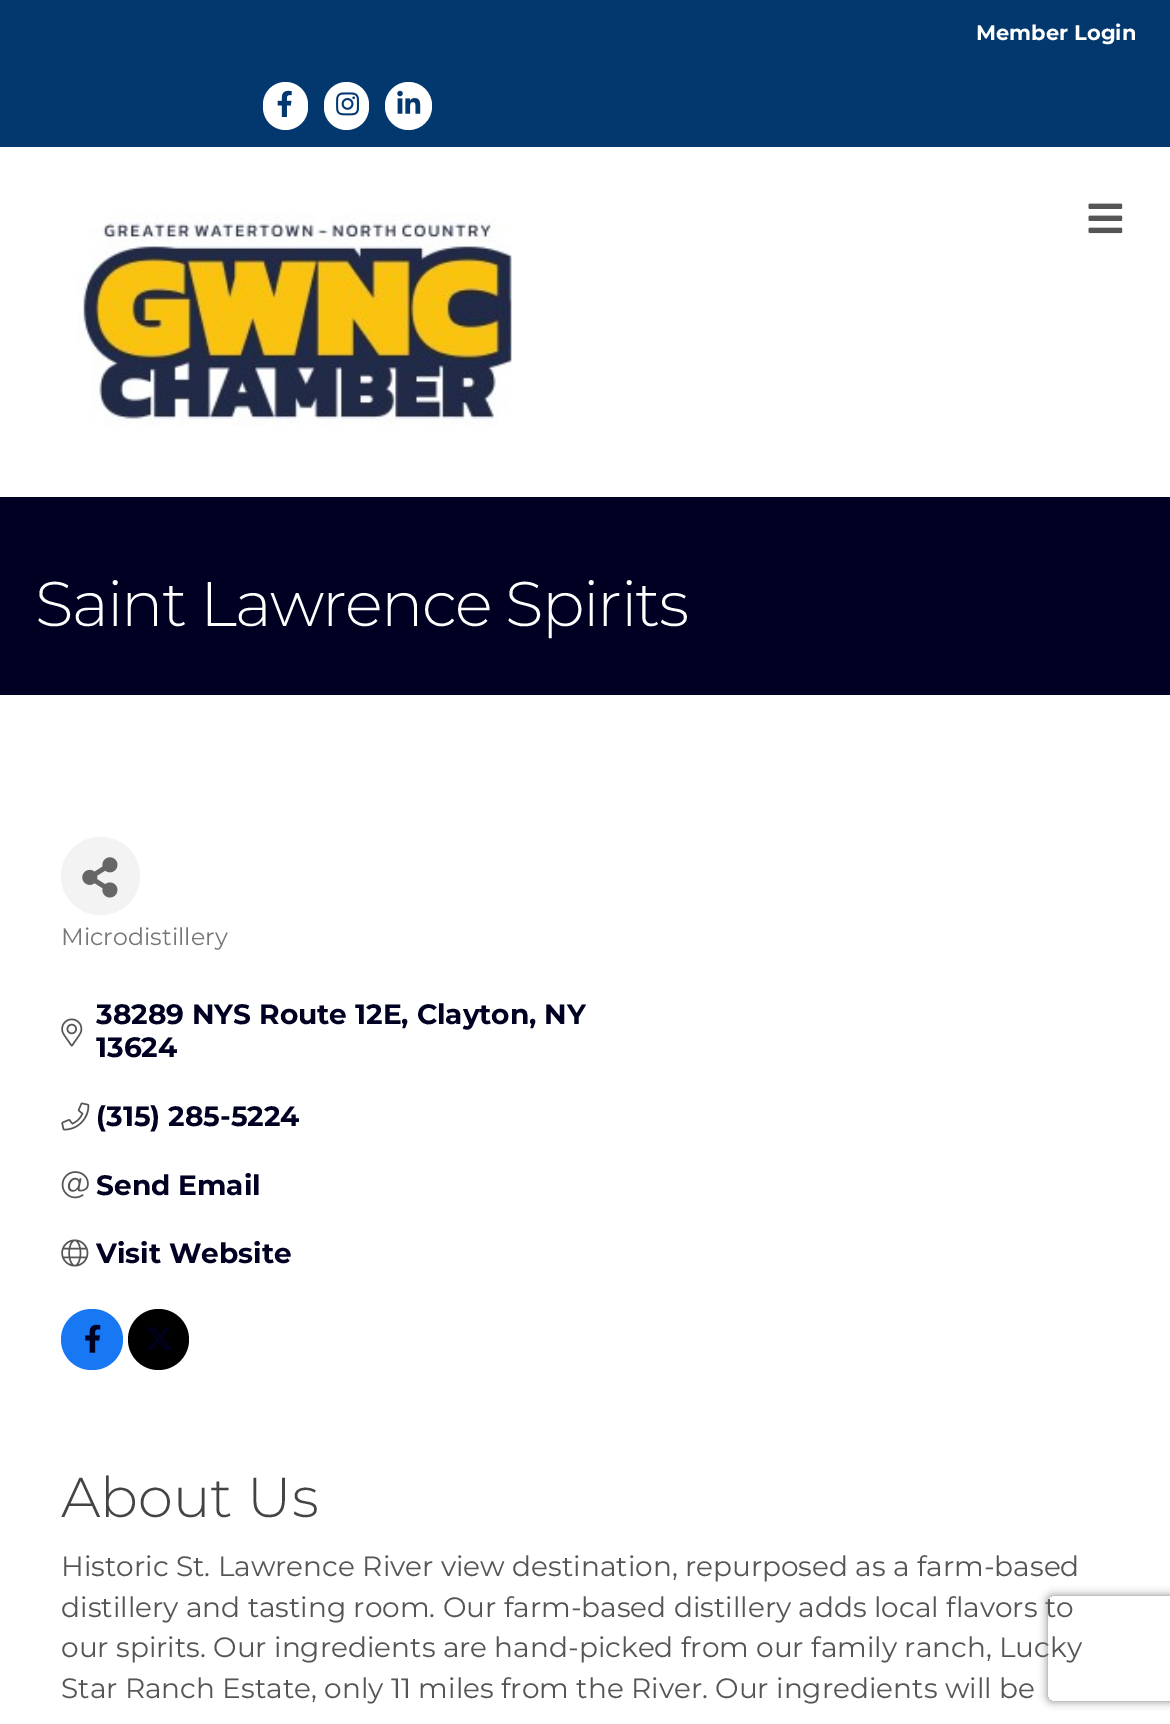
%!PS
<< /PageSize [1170 1724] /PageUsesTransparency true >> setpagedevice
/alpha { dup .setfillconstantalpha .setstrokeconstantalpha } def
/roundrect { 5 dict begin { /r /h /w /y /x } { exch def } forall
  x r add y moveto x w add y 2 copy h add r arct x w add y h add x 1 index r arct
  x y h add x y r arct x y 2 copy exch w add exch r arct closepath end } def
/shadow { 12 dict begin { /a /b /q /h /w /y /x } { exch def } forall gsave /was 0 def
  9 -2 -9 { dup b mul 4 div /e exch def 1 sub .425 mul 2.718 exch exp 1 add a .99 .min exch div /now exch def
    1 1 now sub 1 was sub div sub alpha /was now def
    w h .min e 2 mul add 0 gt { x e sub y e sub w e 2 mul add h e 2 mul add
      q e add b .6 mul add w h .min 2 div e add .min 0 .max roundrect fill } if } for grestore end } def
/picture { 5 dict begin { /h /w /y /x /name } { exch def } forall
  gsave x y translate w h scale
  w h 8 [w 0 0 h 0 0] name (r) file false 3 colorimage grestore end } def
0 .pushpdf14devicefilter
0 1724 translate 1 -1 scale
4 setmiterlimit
1 setgray
0 0 1170 1724 rectfill
0.008 0.22 0.431 setrgbcolor
0 0 1170 147 rectfill
/Montserrat-Bold [21 0 0 -21 0 0] selectfont
1 setgray
976 40 moveto (Member Login) show
263 82 45 48 22.5 roundrect fill
(img1.rgb) 277 90 15 27 picture
324 82 45 48 22.5 roundrect fill
(img2.rgb) 336 92 23 24 picture
385 82 47 48 23.5 roundrect fill
(img3.rgb) 397 90 24 24 picture
(img4.rgb) 77 214 435 212 picture
(img5.rgb) 1088 203 35 31 picture
0 0 0.133 setrgbcolor
0 497 1170 198 rectfill
/Montserrat-Light [63 0 0 -63 0 0] selectfont
1 setgray
35 626 moveto -1.75 0 (Saint Lawrence Spirits) ashow
0.953 setgray
61 837 79 78 39 roundrect fill
(img6.rgb) 82 857 36 41 picture
/Montserrat-Regular [23.75 0 0 -23.75 0 0] selectfont
0.467 setgray
61 945 moveto (Microdistillery) show
(img7.rgb) 61 1018 22 29 picture
/Montserrat-Bold [28 0 0 -28 0 0] selectfont
0 0 0.133 setrgbcolor
96 1024 moveto (38289 NYS Route 12E, Clayton, NY) show
96 1057 moveto (13624) show
(img8.rgb) 61 1102 29 29 picture
96 1126 moveto (\(315\) 285-5224) show
(img9.rgb) 61 1171 28 28 picture
96 1195 moveto (Send Email) show
(img10.rgb) 61 1239 28 28 picture
96 1263 moveto (Visit Website) show
0.094 0.467 0.949 setrgbcolor
61 1309 62 61 30.5 roundrect fill
(img11.rgb) 85 1324 16 29 picture
0 setgray
newpath 158.5 1339.5 30.5 0 360 arc closepath fill
(img12.rgb) 147 1327 25 24 picture
/Montserrat-Light [56 0 0 -56 0 0] selectfont
0.267 setgray
61 1517 moveto (About Us) show
/Montserrat-Regular [28 0 0 -28 0 0] selectfont
0.333 setgray
61 1576 moveto (Historic St. Lawrence River view destination, repurposed as a farm-based) show
61 1617 moveto (distillery and tasting room. Our farm-based distillery adds local flavors to) show
61 1657 moveto (our spirits. Our ingredients are hand-picked from our family ranch, Lucky) show
61 1698 moveto (Star Ranch Estate, only 11 miles from the River. Our ingredients will be) show
gsave
newpath 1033 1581 moveto 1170 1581 lineto 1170 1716 lineto 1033 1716 lineto closepath 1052 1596 moveto 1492 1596 lineto 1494 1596 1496 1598 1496 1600 curveto 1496 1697 lineto 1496 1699 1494 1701 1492 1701 curveto 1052 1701 lineto 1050 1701 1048 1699 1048 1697 curveto 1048 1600 lineto 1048 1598 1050 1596 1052 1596 curveto closepath eoclip newpath
0.502 setgray
1048 1596 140 105 4 4.5 1 shadow
grestore
.poppdf14devicefilter showpage
